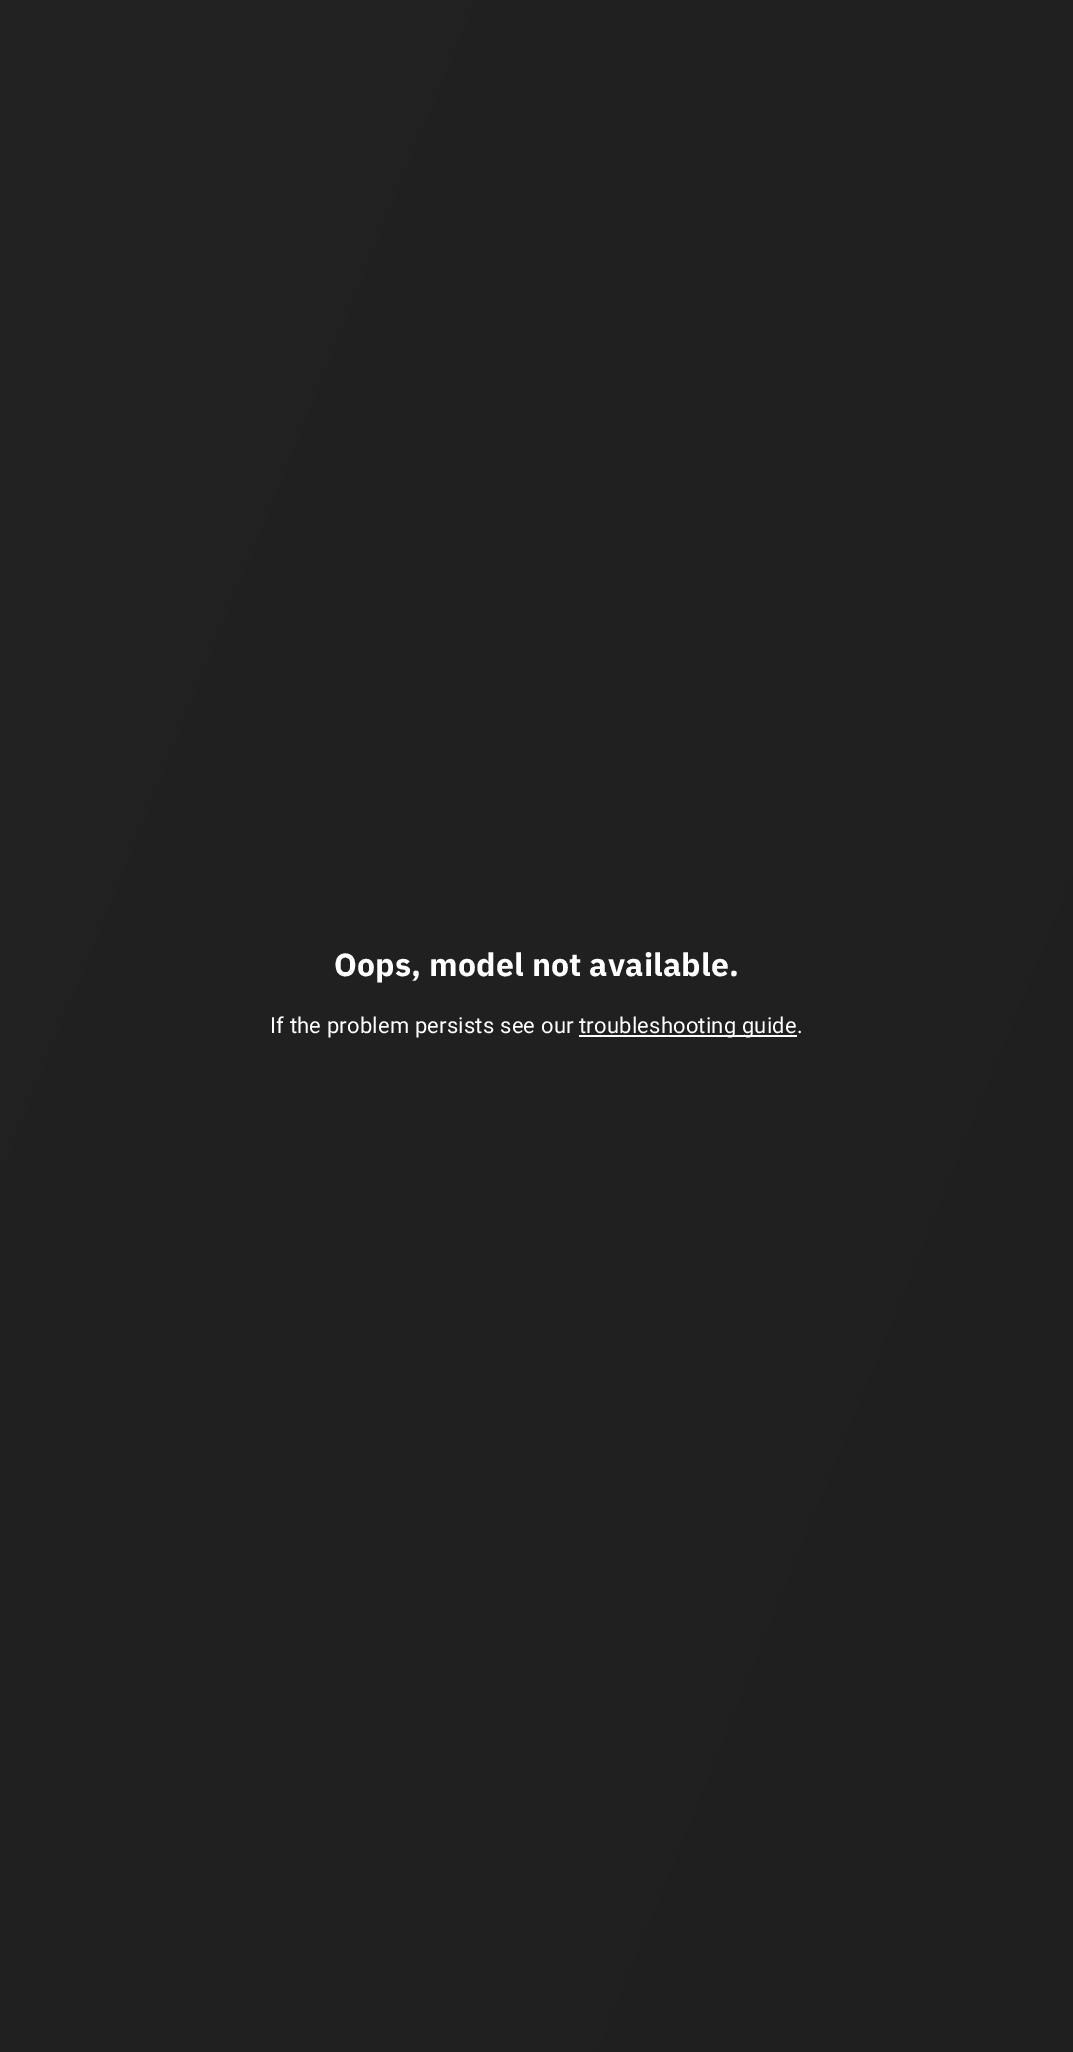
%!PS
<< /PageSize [1073 2052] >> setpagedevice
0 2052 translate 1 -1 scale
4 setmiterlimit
1 setgray
0 0 1073 2052 rectfill
gsave newpath 0 0 moveto 1073 0 lineto 1073 2052 lineto 0 2052 lineto closepath clip newpath
<< /ShadingType 2 /ColorSpace /DeviceRGB /Coords [-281 696 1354 1356] /Extend [true true] /Function << /FunctionType 2 /Domain [0 1] /C0 [0.129 0.129 0.129] /C1 [0.122 0.122 0.122] /N 1 >> >> shfill grestore
/IBMPlexSans-Bold [32 0 0 -32 0 0] selectfont
334 976 moveto 0.2 0 (Oops, model not available.) ashow
/Roboto-Regular [22 0 0 -22 0 0] selectfont
270 1033 moveto 0.2 0 (If the problem persists see our) ashow
579 1035 218 2 rectfill
579 1033 moveto 0.2 0 (troubleshooting guide.) ashow
showpage
